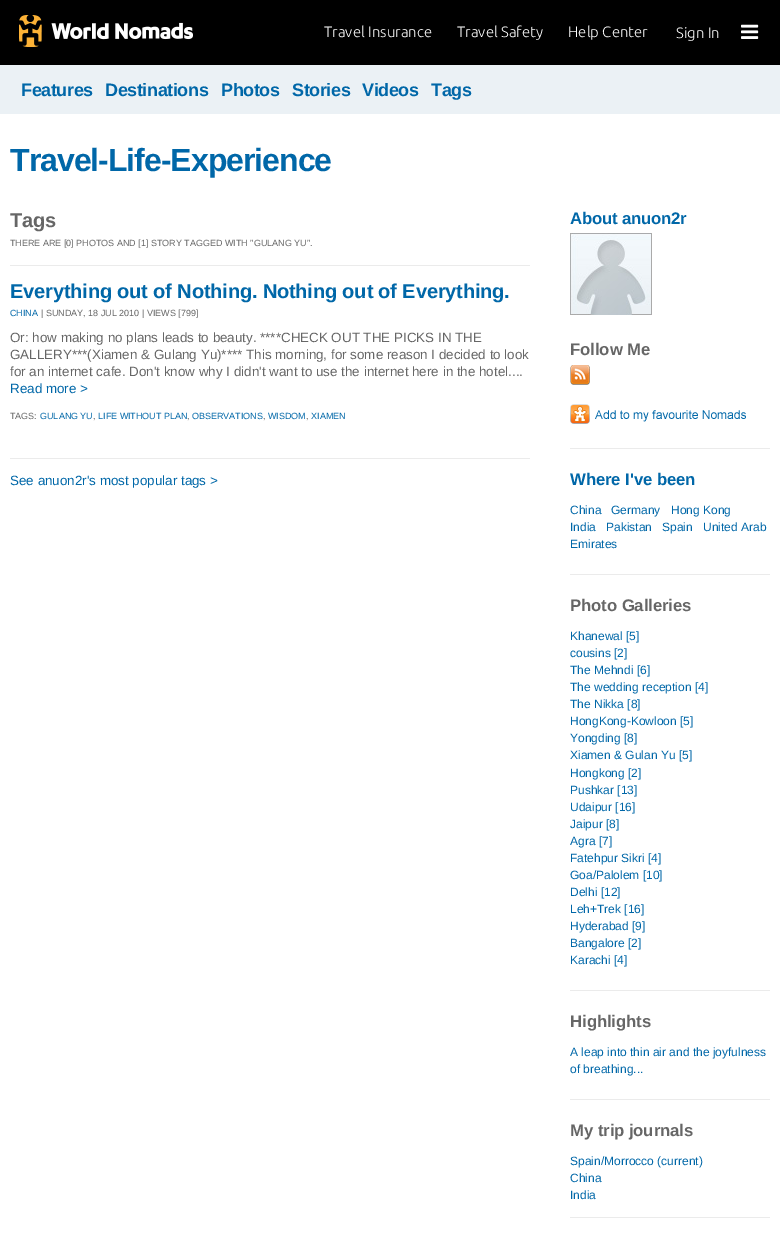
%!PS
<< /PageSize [780 1241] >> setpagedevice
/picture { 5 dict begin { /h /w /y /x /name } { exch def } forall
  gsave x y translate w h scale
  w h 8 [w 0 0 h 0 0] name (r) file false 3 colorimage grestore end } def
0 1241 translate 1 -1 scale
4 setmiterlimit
1 setgray
0 0 780 1241 rectfill
0 setgray
0 0 780 65 rectfill
(img1.rgb) 19 15 174 32 picture
/Ubuntu-Light [15 0 0 -15 0 0] selectfont
1 setgray
324 37 moveto (Travel Insurance) show
457 37 moveto (Travel Safety) show
568 37 moveto (Help Center) show
676 38 moveto (Sign In) show
(img2.rgb) 741 24 18 15 picture
0.922 0.945 0.961 setrgbcolor
0 65 780 49 rectfill
/LiberationSans-Bold [18 0 0 -18 0 0] selectfont
0 0.404 0.659 setrgbcolor
21 96 moveto -0.4 0 (Features) ashow
105 96 moveto -0.4 0 (Destinations) ashow
221 96 moveto -0.4 0 (Photos) ashow
292 96 moveto -0.4 0 (Stories) ashow
362 96 moveto -0.4 0 (Videos) ashow
431 96 moveto -0.4 0 (Tags) ashow
/LiberationSans-Bold [32 0 0 -32 0 0] selectfont
10 171 moveto -1 0 (Travel-Life-Experience) ashow
/LiberationSans-Bold [20.1 0 0 -20.1 0 0] selectfont
0.4 setgray
10 227 moveto -0.2 0 (Tags) ashow
/LiberationSans-Regular [9 0 0 -9 0 0] selectfont
10 246 moveto (THERE ARE [0] PHOTOS AND [1] STORY TAGGED WITH "GULANG YU".) show
0.922 setgray
10 265 520 1 rectfill
/LiberationSans-Bold [20.1 0 0 -20.1 0 0] selectfont
0 0.404 0.659 setrgbcolor
10 298 moveto -0.2 0 (Everything out of Nothing. Nothing out of Everything.) ashow
/LiberationSans-Regular [9 0 0 -9 0 0] selectfont
10 316 moveto (CHINA) show
0.4 setgray
41 316 moveto (| SUNDAY, 18 JUL 2010 | VIEWS [799]) show
/LiberationSans-Regular [13.4 0 0 -13.4 0 0] selectfont
10 342 moveto (Or: how making no plans leads to beauty.) show
260 342 moveto (****CHECK OUT THE PICKS IN THE) show
10 359 moveto (GALLERY***\(Xiamen & Gulang Yu\)**** This morning, for some reason I decided to look) show
10 376 moveto (for an internet cafe. Don't know why I didn't want to use the internet here in the hotel....) show
0 0.404 0.659 setrgbcolor
10 393 moveto (Read more >) show
/LiberationSans-Regular [9 0 0 -9 0 0] selectfont
0.4 setgray
10 419 moveto (TAGS:) show
0 0.404 0.659 setrgbcolor
40 419 moveto (GULANG YU) show
98 419 moveto (LIFE WITHOUT PLAN) show
192 419 moveto (OBSERVATIONS) show
268 419 moveto (WISDOM) show
311 419 moveto (XIAMEN) show
0.4 setgray
93 419 moveto (,) show
187 419 moveto (,) show
263 419 moveto (,) show
306 419 moveto (,) show
0.922 setgray
10 458 520 1 rectfill
/LiberationSans-Regular [13.4 0 0 -13.4 0 0] selectfont
0 0.404 0.659 setrgbcolor
10 485 moveto (See anuon2r's most popular tags >) show
/LiberationSans-Bold [16.75 0 0 -16.75 0 0] selectfont
570 224 moveto -0.2 0 (About anuon2r) ashow
(img3.rgb) 570 233 82 82 picture
0.4 setgray
570 355 moveto -0.1 0 (Follow Me) ashow
(img4.rgb) 570 365 20 20 picture
(img5.rgb) 570 404 176 20 picture
0.922 setgray
570 448 200 1 rectfill
0 0.404 0.659 setrgbcolor
570 485 moveto -0.1 0 (Where I've been) ashow
/LiberationSans-Regular [12 0 0 -12 0 0] selectfont
570 514 moveto (China) show
611 514 moveto (Germany) show
671 514 moveto (Hong Kong) show
570 531 moveto (India) show
606 531 moveto (Pakistan) show
662 531 moveto (Spain) show
703 531 moveto (United Arab) show
570 548 moveto (Emirates) show
0.922 setgray
570 574 200 1 rectfill
/LiberationSans-Bold [16.75 0 0 -16.75 0 0] selectfont
0.4 setgray
570 611 moveto -0.1 0 (Photo Galleries) ashow
/LiberationSans-Regular [12 0 0 -12 0 0] selectfont
0 0.404 0.659 setrgbcolor
570 640 moveto (Khanewal [5]) show
570 657 moveto (cousins [2]) show
570 674 moveto (The Mehndi [6]) show
570 691 moveto (The wedding reception [4]) show
570 708 moveto (The Nikka [8]) show
570 725 moveto (HongKong-Kowloon [5]) show
570 742 moveto (Yongding [8]) show
570 759 moveto (Xiamen & Gulan Yu [5]) show
570 777 moveto (Hongkong [2]) show
570 794 moveto (Pushkar [13]) show
570 811 moveto (Udaipur [16]) show
570 828 moveto (Jaipur [8]) show
570 845 moveto (Agra [7]) show
570 862 moveto (Fatehpur Sikri [4]) show
570 879 moveto (Goa/Palolem [10]) show
570 896 moveto (Delhi [12]) show
570 913 moveto (Leh+Trek [16]) show
570 930 moveto (Hyderabad [9]) show
570 947 moveto (Bangalore [2]) show
570 964 moveto (Karachi [4]) show
0.922 setgray
570 990 200 1 rectfill
/LiberationSans-Bold [16.75 0 0 -16.75 0 0] selectfont
0.4 setgray
570 1027 moveto -0.1 0 (Highlights) ashow
/LiberationSans-Regular [12 0 0 -12 0 0] selectfont
0 0.404 0.659 setrgbcolor
570 1056 moveto (A leap into thin air and the joyfulness) show
570 1073 moveto (of breathing...) show
0.922 setgray
570 1099 200 1 rectfill
/LiberationSans-Bold [16.75 0 0 -16.75 0 0] selectfont
0.4 setgray
570 1136 moveto -0.1 0 (My trip journals) ashow
/LiberationSans-Regular [12 0 0 -12 0 0] selectfont
0 0.404 0.659 setrgbcolor
570 1165 moveto (Spain/Morrocco \(current\)) show
570 1182 moveto (China) show
570 1199 moveto (India) show
0.922 setgray
570 1217 200 1 rectfill
showpage
